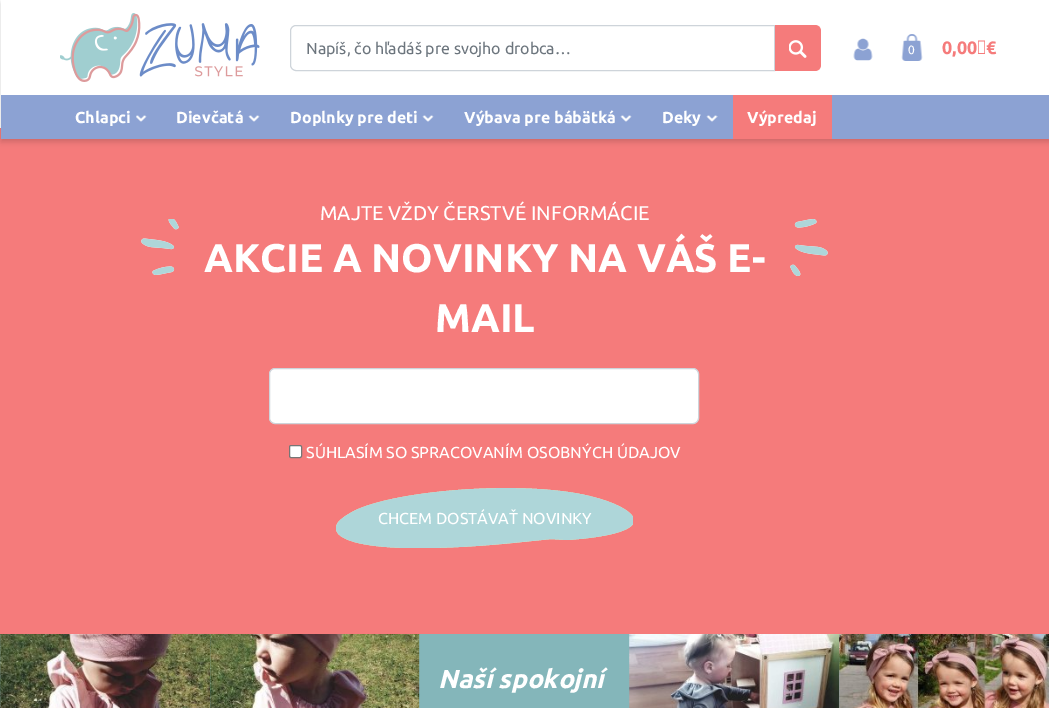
%!PS
<< /PageSize [1049 708] /PageUsesTransparency true >> setpagedevice
/alpha { dup .setfillconstantalpha .setstrokeconstantalpha } def
/roundrect { 5 dict begin { /r /h /w /y /x } { exch def } forall
  x r add y moveto x w add y 2 copy h add r arct x w add y h add x 1 index r arct
  x y h add x y r arct x y 2 copy exch w add exch r arct closepath end } def
/shadow { 12 dict begin { /a /b /q /h /w /y /x } { exch def } forall gsave /was 0 def
  9 -2 -9 { dup b mul 4 div /e exch def 1 sub .425 mul 2.718 exch exp 1 add a .99 .min exch div /now exch def
    1 1 now sub 1 was sub div sub alpha /was now def
    w h .min e 2 mul add 0 gt { x e sub y e sub w e 2 mul add h e 2 mul add
      q e add b .6 mul add w h .min 2 div e add .min 0 .max roundrect fill } if } for grestore end } def
/picture { 5 dict begin { /h /w /y /x /name } { exch def } forall
  gsave x y translate w h scale
  w h 8 [w 0 0 h 0 0] name (r) file false 3 colorimage grestore end } def
0 .pushpdf14devicefilter
0 708 translate 1 -1 scale
4 setmiterlimit
1 setgray
0 0 1049 708 rectfill
0.961 0.482 0.482 setrgbcolor
0 128 1049 506 rectfill
0 setgray
1 3 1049 139 0 3 0.16 shadow
1 setgray
1 0 1048 95 rectfill
(img1.rgb) 60 13 200 69 picture
0.808 0.831 0.855 setrgbcolor
newpath 296 25.5 moveto 774.5 25.5 lineto 774.5 70.5 lineto 296 70.5 lineto 293 70.5 290.5 68 290.5 65 curveto 290.5 31 lineto 290.5 28 293 25.5 296 25.5 curveto closepath stroke
/Ubuntu-Regular [16 0 0 -16 0 0] selectfont
0.424 0.459 0.49 setrgbcolor
306 54 moveto (Napíš, čo hľadáš pre svojho drobca…) show
0.961 0.482 0.482 setrgbcolor
newpath 775 25 moveto 815 25 lineto 818.5 25 821 27.5 821 31 curveto 821 65 lineto 821 68.5 818.5 71 815 71 curveto 775 71 lineto closepath fill
(img2.rgb) 789 40 18 18 picture
(img3.rgb) 853 38 20 23 picture
(img4.rgb) 901 34 22 27 picture
/Ubuntu-Regular [12 0 0 -12 0 0] selectfont
1 setgray
908 54 moveto (0) show
/Ubuntu-Bold [18 0 0 -18 0 0] selectfont
0.961 0.482 0.482 setrgbcolor
942 54 moveto (0,00 €) show
0.549 0.635 0.827 setrgbcolor
1 95 1048 44 rectfill
/Ubuntu-Bold [16 0 0 -16 0 0] selectfont
1 setgray
75 123 moveto (Chlapci) show
(img5.rgb) 136 115 11 7 picture
176 123 moveto (Dievčatá) show
(img6.rgb) 248 115 12 7 picture
290 123 moveto (Doplnky pre deti) show
(img6.rgb) 422 115 12 7 picture
464 123 moveto (Výbava pre bábätká) show
(img6.rgb) 620 115 12 7 picture
662 123 moveto (Deky) show
(img7.rgb) 706 115 12 7 picture
0.961 0.482 0.482 setrgbcolor
733 95 99 44 rectfill
1 setgray
747 123 moveto (Výpredaj) show
/Ubuntu-Regular [20 0 0 -20 0 0] selectfont
320 220 moveto (MAJTE VŽDY ČERSTVÉ INFORMÁCIE) show
(img8.rgb) 141 219 38 56 picture
/Ubuntu-Bold [40 0 0 -40 0 0] selectfont
204 272 moveto (AKCIE A NOVINKY NA VÁŠ E-) show
(img9.rgb) 790 219 38 57 picture
435 332 moveto (MAIL) show
269.5 368.5 429 55 5.5 roundrect gsave fill grestore
0.808 0.831 0.855 setrgbcolor
stroke
1 setgray
289.5 445.5 12 12 1.5 roundrect gsave fill grestore
0.463 setgray
stroke
/Ubuntu-Regular [16 0 0 -16 0 0] selectfont
1 setgray
306 458 moveto (SÚHLASÍM SO SPRACOVANÍM OSOBNÝCH ÚDAJOV) show
0.875 0.941 0.773 setrgbcolor
newpath 408 548 moveto 359 547 337 539 336 529 curveto 336 528 lineto 336 522 343 517 354 511 curveto 394 491 512 481 580 494 curveto 606 499 628 508 633 517 curveto 633 524 lineto 628 531 609 537 567 540 curveto 551 539 lineto 522 542 lineto 494 545 466 547 433 548 curveto closepath fill
0.682 0.839 0.851 setrgbcolor
newpath 408 548 moveto 359 547 337 539 336 529 curveto 336 528 lineto 336 522 343 517 354 511 curveto 394 491 512 481 580 494 curveto 606 499 628 508 633 517 curveto 633 524 lineto 628 531 609 537 567 540 curveto 551 539 lineto 509 543 471 548 421 548 curveto closepath fill
1 setgray
378 524 moveto (CHCEM DOSTÁVAŤ NOVINKY) show
0.518 0.714 0.729 setrgbcolor
0 634 840 74 rectfill
(img10.rgb) 0 634 1 74 picture
(img11.rgb) 0 634 211 74 picture
(img12.rgb) 210 634 210 74 picture
/Ubuntu-BoldItalic [26 0 0 -26 0 0] selectfont
1 setgray
438 688 moveto (Naší spokojní) show
(img13.rgb) 629 634 211 74 picture
(img14.rgb) 839 634 210 74 picture
.poppdf14devicefilter showpage
